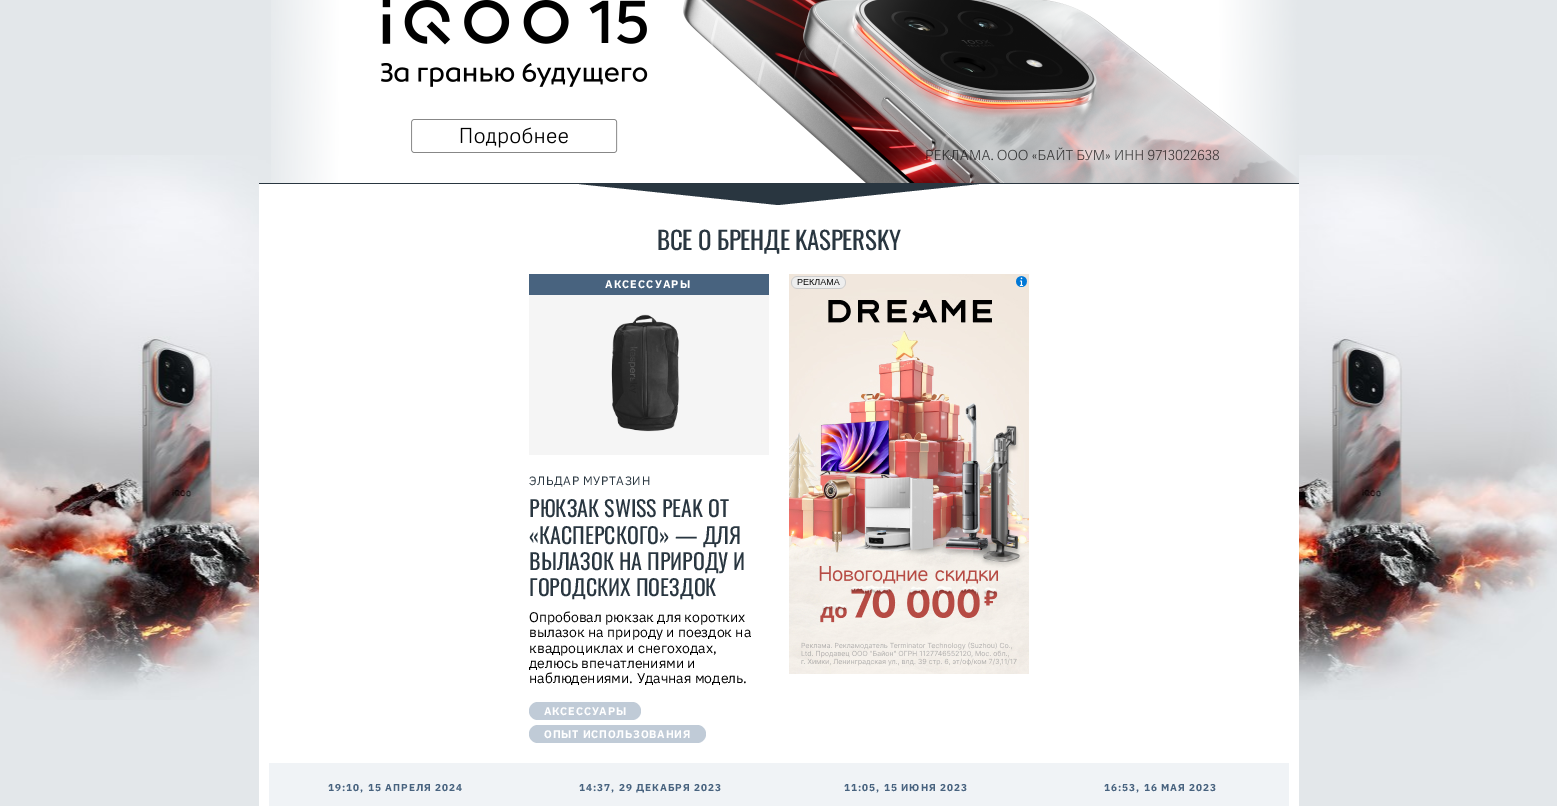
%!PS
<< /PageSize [1557 806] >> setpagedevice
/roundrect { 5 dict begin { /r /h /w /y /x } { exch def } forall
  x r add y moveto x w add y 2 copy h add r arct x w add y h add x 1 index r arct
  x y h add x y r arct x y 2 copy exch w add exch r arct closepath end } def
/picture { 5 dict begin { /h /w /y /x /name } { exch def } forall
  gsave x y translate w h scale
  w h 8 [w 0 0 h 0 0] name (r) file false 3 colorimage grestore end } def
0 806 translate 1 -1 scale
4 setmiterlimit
0.89 0.906 0.918 setrgbcolor
0 0 1557 806 rectfill
(img1.rgb) 0 155 1557 545 picture
(img2.rgb) 271 0 1028 183 picture
1 setgray
259 184 1040 622 rectfill
0.161 0.212 0.251 setrgbcolor
259 183 1040 1 rectfill
newpath 979 184 moveto 778 205 lineto 579 184 lineto fill
/Oswald-Regular [25 0 0 -25 0 0] selectfont
657 250 moveto -0.25 0 (ВСЕ О БРЕНДЕ KASPERSKY) ashow
0.282 0.388 0.498 setrgbcolor
529 274 240 21 rectfill
/IBMPlexSans-Bold [11 0 0 -11 0 0] selectfont
1 setgray
605 288 moveto 1.1 0 (АКСЕССУАРЫ) ashow
(img3.rgb) 529 295 240 160 picture
/IBMPlexSans-Regular [12 0 0 -12 0 0] selectfont
0.161 0.212 0.251 setrgbcolor
529 485 moveto 0.6 0 (ЭЛЬДАР МУРТАЗИН) ashow
/Oswald-Regular [22 0 0 -22 0 0] selectfont
529 517 moveto (РЮКЗАК SWISS PEAK ОТ) show
529 544 moveto («КАСПЕРСКОГО» — ДЛЯ) show
529 570 moveto (ВЫЛАЗОК НА ПРИРОДУ И) show
529 596 moveto (ГОРОДСКИХ ПОЕЗДОК) show
/IBMPlexSans-Regular [14 0 0 -14 0 0] selectfont
0 setgray
529 622 moveto (Опробовал рюкзак для коротких) show
529 637 moveto (вылазок на природу и поездок на) show
529 653 moveto (квадроциклах и снегоходах,) show
529 668 moveto (делюсь впечатлениями и) show
529 683 moveto (наблюдениями. Удачная модель.) show
0.753 0.796 0.843 setrgbcolor
529 702 112 18 9 roundrect fill
/IBMPlexSans-Bold [11 0 0 -11 0 0] selectfont
1 setgray
544 715 moveto 0.75 0 (АКСЕССУАРЫ) ashow
0.753 0.796 0.843 setrgbcolor
529 725 177 18 9 roundrect fill
1 setgray
544 738 moveto 0.75 0 (ОПЫТ ИСПОЛЬЗОВАНИЯ) ashow
(img4.rgb) 789 274 240 400 picture
0.941 0.953 0.965 setrgbcolor
269 763 1020 43 rectfill
/IBMPlexSans-Bold [10 0 0 -10 0 0] selectfont
0.282 0.388 0.498 setrgbcolor
328 791 moveto 1 0 (19:10, 15 АПРЕЛЯ 2024) ashow
579 791 moveto 1 0 (14:37, 29 ДЕКАБРЯ 2023) ashow
844 791 moveto 1 0 (11:05, 15 ИЮНЯ 2023) ashow
1104 791 moveto 1 0 (16:53, 16 МАЯ 2023) ashow
showpage
